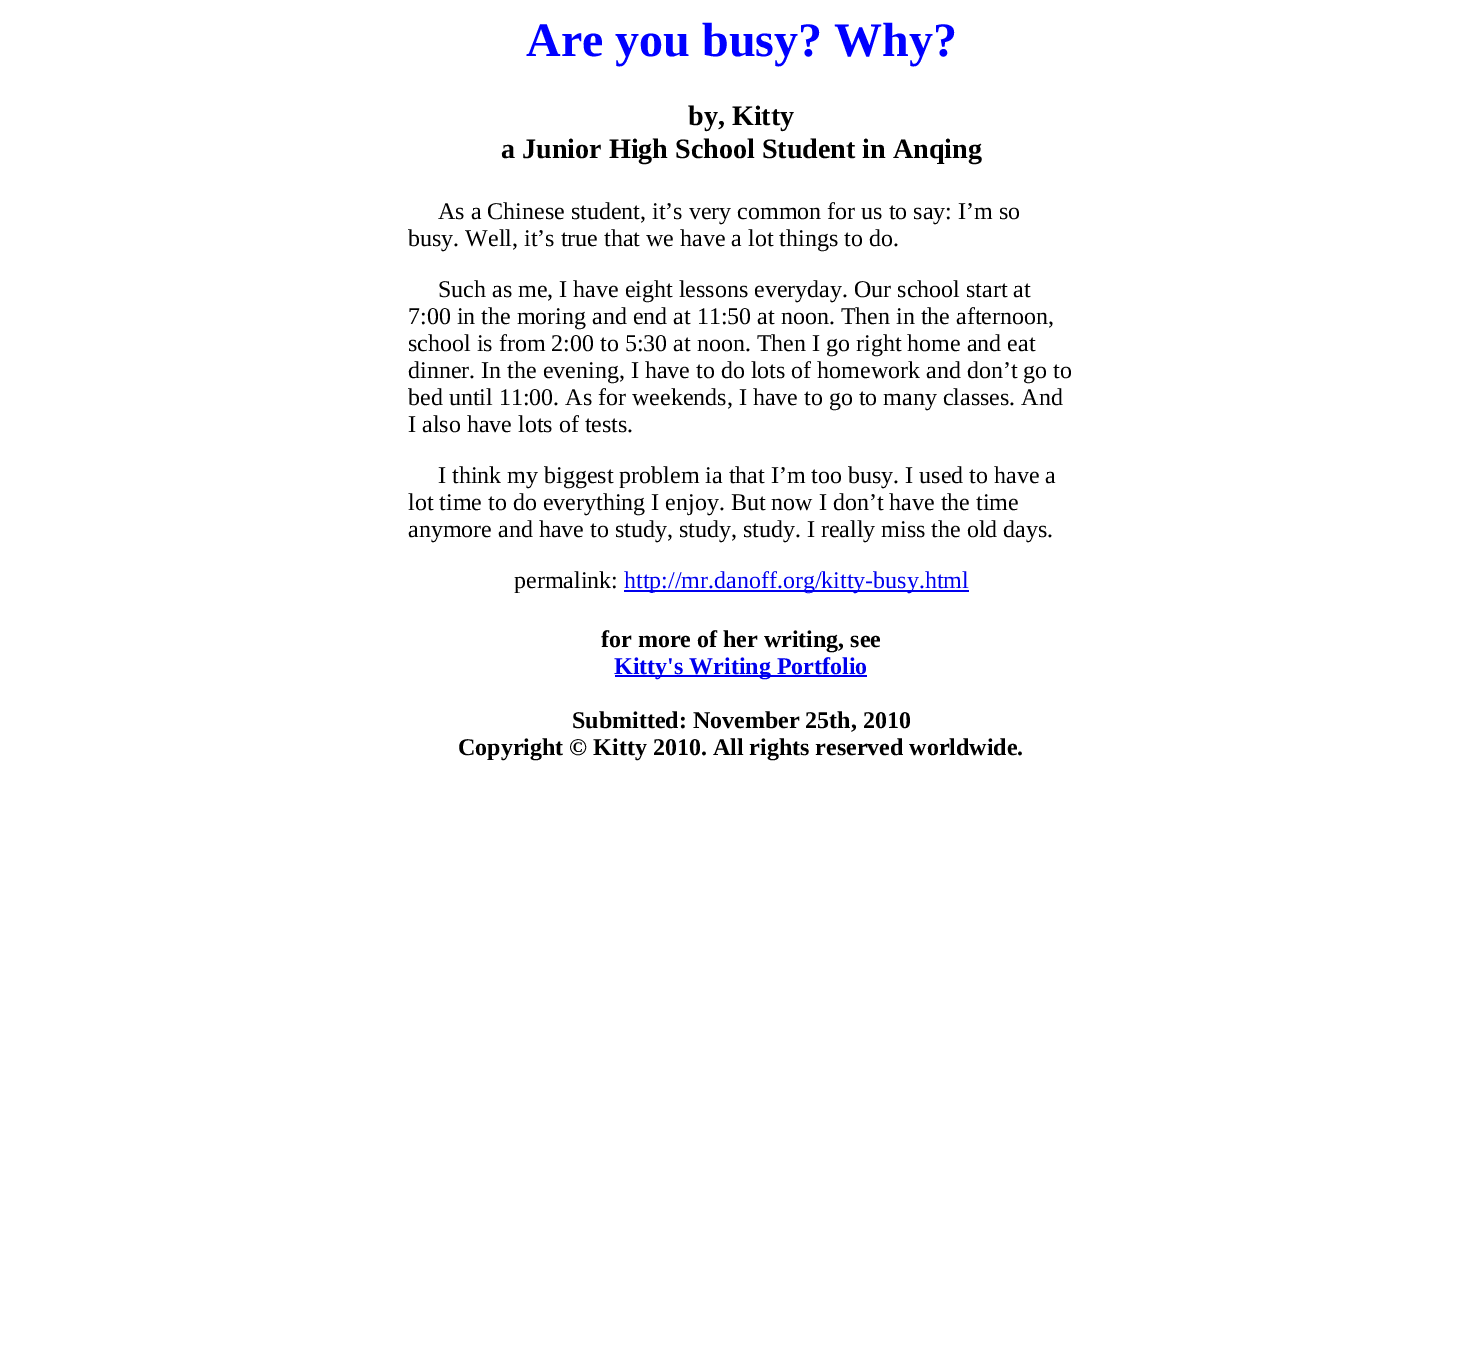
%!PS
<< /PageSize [1481 1349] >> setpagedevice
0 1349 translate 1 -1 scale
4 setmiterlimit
1 setgray
0 0 1481 1349 rectfill
/LiberationSerif-Bold [48 0 0 -48 0 0] selectfont
0 0 1 setrgbcolor
526 56 moveto (Are you busy? Why?) show
/LiberationSerif-Bold [28.1 0 0 -28.1 0 0] selectfont
0 setgray
688 125 moveto (by, Kitty) show
501 158 moveto (a Junior High School Student in Anqing) show
/LiberationSerif-Regular [24 0 0 -24 0 0] selectfont
438 219 moveto (As a Chinese student, it’s very common for us to say: I’m so) show
408 246 moveto (busy. Well, it’s true that we have a lot things to do.) show
438 297 moveto (Such as me, I have eight lessons everyday. Our school start at) show
408 324 moveto (7:00 in the moring and end at 11:50 at noon. Then in the afternoon,) show
408 351 moveto (school is from 2:00 to 5:30 at noon. Then I go right home and eat) show
408 378 moveto (dinner. In the evening, I have to do lots of homework and don’t go to) show
408 405 moveto (bed until 11:00. As for weekends, I have to go to many classes. And) show
408 432 moveto (I also have lots of tests.) show
438 483 moveto (I think my biggest problem ia that I’m too busy. I used to have a) show
408 510 moveto (lot time to do everything I enjoy. But now I don’t have the time) show
408 537 moveto (anymore and have to study, study, study. I really miss the old days.) show
514 588 moveto (permalink:) show
0 0 0.933 setrgbcolor
624 590 345 2 rectfill
624 588 moveto (http://mr.danoff.org/kitty-busy.html) show
/LiberationSerif-Bold [24 0 0 -24 0 0] selectfont
0 setgray
601 647 moveto (for more of her writing, see) show
0 0 0.933 setrgbcolor
615 675 252 2 rectfill
614 674 moveto (Kitty's Writing Portfolio) show
0 setgray
572 728 moveto (Submitted: November 25th, 2010) show
458 755 moveto (Copyright © Kitty 2010. All rights reserved worldwide.) show
showpage
